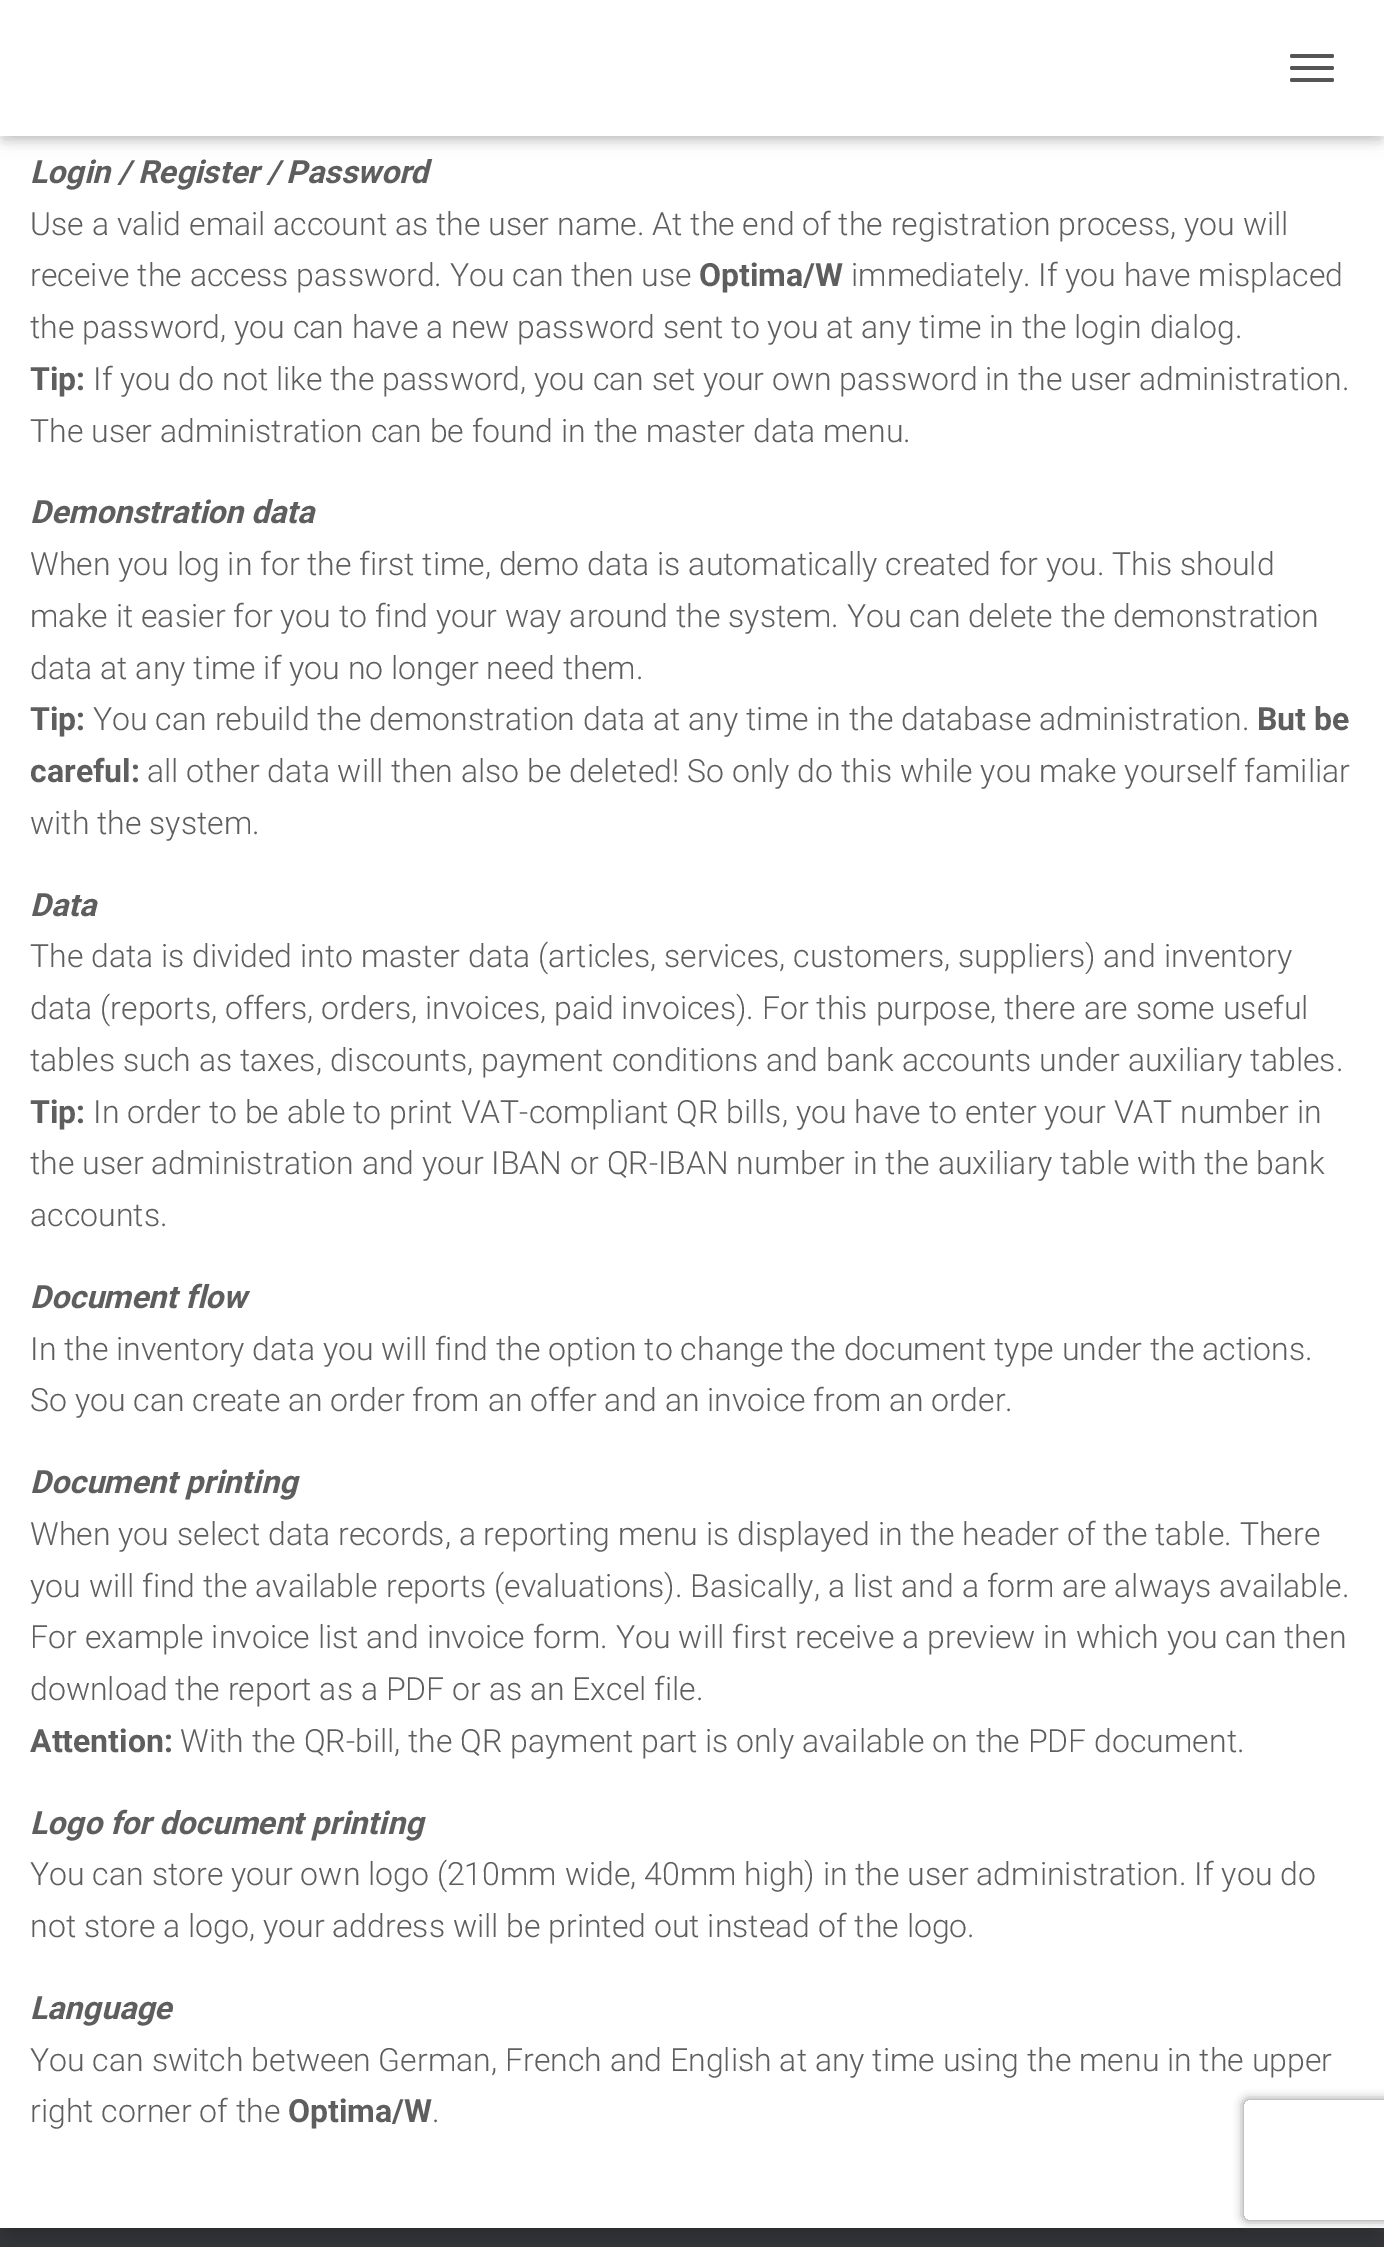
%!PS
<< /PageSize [1384 2247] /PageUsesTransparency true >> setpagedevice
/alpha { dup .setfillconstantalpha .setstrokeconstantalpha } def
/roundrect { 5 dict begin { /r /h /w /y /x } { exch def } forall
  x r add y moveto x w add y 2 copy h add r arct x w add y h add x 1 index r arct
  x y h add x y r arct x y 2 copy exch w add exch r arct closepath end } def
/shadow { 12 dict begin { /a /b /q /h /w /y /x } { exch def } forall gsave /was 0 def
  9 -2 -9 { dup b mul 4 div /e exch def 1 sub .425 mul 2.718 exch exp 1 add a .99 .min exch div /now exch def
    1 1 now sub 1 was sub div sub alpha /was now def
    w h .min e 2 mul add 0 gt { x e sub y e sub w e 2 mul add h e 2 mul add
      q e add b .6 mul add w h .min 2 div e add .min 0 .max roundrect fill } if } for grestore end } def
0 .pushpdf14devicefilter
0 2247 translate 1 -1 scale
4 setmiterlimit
0.196 0.204 0.216 setrgbcolor
0 0 1384 2247 rectfill
0 setgray
10 112 1364 2122 0 10 0.2 shadow
1 setgray
0 136 1384 2092 rectfill
0 setgray
4 12 1376 128 0 5 0.1 shadow
0 2 1384 136 0 10 0.12 shadow
12 14 1360 112 0 10 0.42 shadow
1 setgray
0 0 1384 136 rectfill
0.333 setgray
1290 54 44 4 2 roundrect fill
1290 66 44 4 2 roundrect fill
1290 78 44 4 2 roundrect fill
/Roboto-BoldItalic [32 0 0 -32 0 0] selectfont
0.369 setgray
30 183 moveto (Login / Register / Password) show
/Roboto-Light [32 0 0 -32 0 0] selectfont
30 235 moveto (Use a valid email account as the user name. At the end of the registration process, you will) show
30 286 moveto (receive the access password. You can then use) show
/Roboto-Bold [32 0 0 -32 0 0] selectfont
699 286 moveto (Optima/W) show
/Roboto-Light [32 0 0 -32 0 0] selectfont
851 286 moveto (immediately. If you have misplaced) show
30 338 moveto (the password, you can have a new password sent to you at any time in the login dialog.) show
/Roboto-Bold [32 0 0 -32 0 0] selectfont
30 390 moveto (Tip:) show
/Roboto-Light [32 0 0 -32 0 0] selectfont
93 390 moveto (If you do not like the password, you can set your own password in the user administration.) show
30 442 moveto (The user administration can be found in the master data menu.) show
/Roboto-BoldItalic [32 0 0 -32 0 0] selectfont
30 523 moveto (Demonstration data) show
/Roboto-Light [32 0 0 -32 0 0] selectfont
30 575 moveto (When you log in for the first time, demo data is automatically created for you. This should) show
30 627 moveto (make it easier for you to find your way around the system. You can delete the demonstration) show
30 679 moveto (data at any time if you no longer need them.) show
/Roboto-Bold [32 0 0 -32 0 0] selectfont
30 730 moveto (Tip:) show
/Roboto-Light [32 0 0 -32 0 0] selectfont
93 730 moveto (You can rebuild the demonstration data at any time in the database administration.) show
/Roboto-Bold [32 0 0 -32 0 0] selectfont
1257 730 moveto (But be) show
30 782 moveto (careful:) show
/Roboto-Light [32 0 0 -32 0 0] selectfont
147 782 moveto (all other data will then also be deleted! So only do this while you make yourself familiar) show
30 834 moveto (with the system.) show
/Roboto-BoldItalic [32 0 0 -32 0 0] selectfont
30 916 moveto (Data) show
/Roboto-Light [32 0 0 -32 0 0] selectfont
30 967 moveto (The data is divided into master data \(articles, services, customers, suppliers\) and inventory) show
30 1019 moveto (data \(reports, offers, orders, invoices, paid invoices\). For this purpose, there are some useful) show
30 1071 moveto (tables such as taxes, discounts, payment conditions and bank accounts under auxiliary tables.) show
/Roboto-Bold [32 0 0 -32 0 0] selectfont
30 1123 moveto (Tip:) show
/Roboto-Light [32 0 0 -32 0 0] selectfont
93 1123 moveto (In order to be able to print VAT-compliant QR bills, you have to enter your VAT number in) show
30 1174 moveto (the user administration and your IBAN or QR-IBAN number in the auxiliary table with the bank) show
30 1226 moveto (accounts.) show
/Roboto-BoldItalic [32 0 0 -32 0 0] selectfont
30 1308 moveto (Document flow) show
/Roboto-Light [32 0 0 -32 0 0] selectfont
30 1360 moveto (In the inventory data you will find the option to change the document type under the actions.) show
30 1411 moveto (So you can create an order from an offer and an invoice from an order.) show
/Roboto-BoldItalic [32 0 0 -32 0 0] selectfont
30 1493 moveto (Document printing) show
/Roboto-Light [32 0 0 -32 0 0] selectfont
30 1545 moveto (When you select data records, a reporting menu is displayed in the header of the table. There) show
30 1597 moveto (you will find the available reports \(evaluations\). Basically, a list and a form are always available.) show
30 1648 moveto (For example invoice list and invoice form. You will first receive a preview in which you can then) show
30 1700 moveto (download the report as a PDF or as an Excel file.) show
/Roboto-Bold [32 0 0 -32 0 0] selectfont
30 1752 moveto (Attention:) show
/Roboto-Light [32 0 0 -32 0 0] selectfont
180 1752 moveto (With the QR-bill, the QR payment part is only available on the PDF document.) show
/Roboto-BoldItalic [32 0 0 -32 0 0] selectfont
30 1834 moveto (Logo for document printing) show
/Roboto-Light [32 0 0 -32 0 0] selectfont
30 1885 moveto (You can store your own logo \(210mm wide, 40mm high\) in the user administration. If you do) show
30 1937 moveto (not store a logo, your address will be printed out instead of the logo.) show
/Roboto-BoldItalic [32 0 0 -32 0 0] selectfont
30 2019 moveto (Language) show
/Roboto-Light [32 0 0 -32 0 0] selectfont
30 2071 moveto (You can switch between German, French and English at any time using the menu in the upper) show
30 2122 moveto (right corner of the) show
/Roboto-Bold [32 0 0 -32 0 0] selectfont
288 2122 moveto (Optima/W) show
/Roboto-Light [32 0 0 -32 0 0] selectfont
432 2122 moveto (.) show
gsave
newpath 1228 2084 moveto 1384 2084 lineto 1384 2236 lineto 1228 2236 lineto closepath 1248 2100 moveto 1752 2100 lineto 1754 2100 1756 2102 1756 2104 curveto 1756 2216 lineto 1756 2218 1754 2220 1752 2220 curveto 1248 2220 lineto 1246 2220 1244 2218 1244 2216 curveto 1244 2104 lineto 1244 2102 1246 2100 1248 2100 curveto closepath eoclip newpath
0.502 setgray
1244 2100 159 120 4 5 1 shadow
grestore
.poppdf14devicefilter showpage
